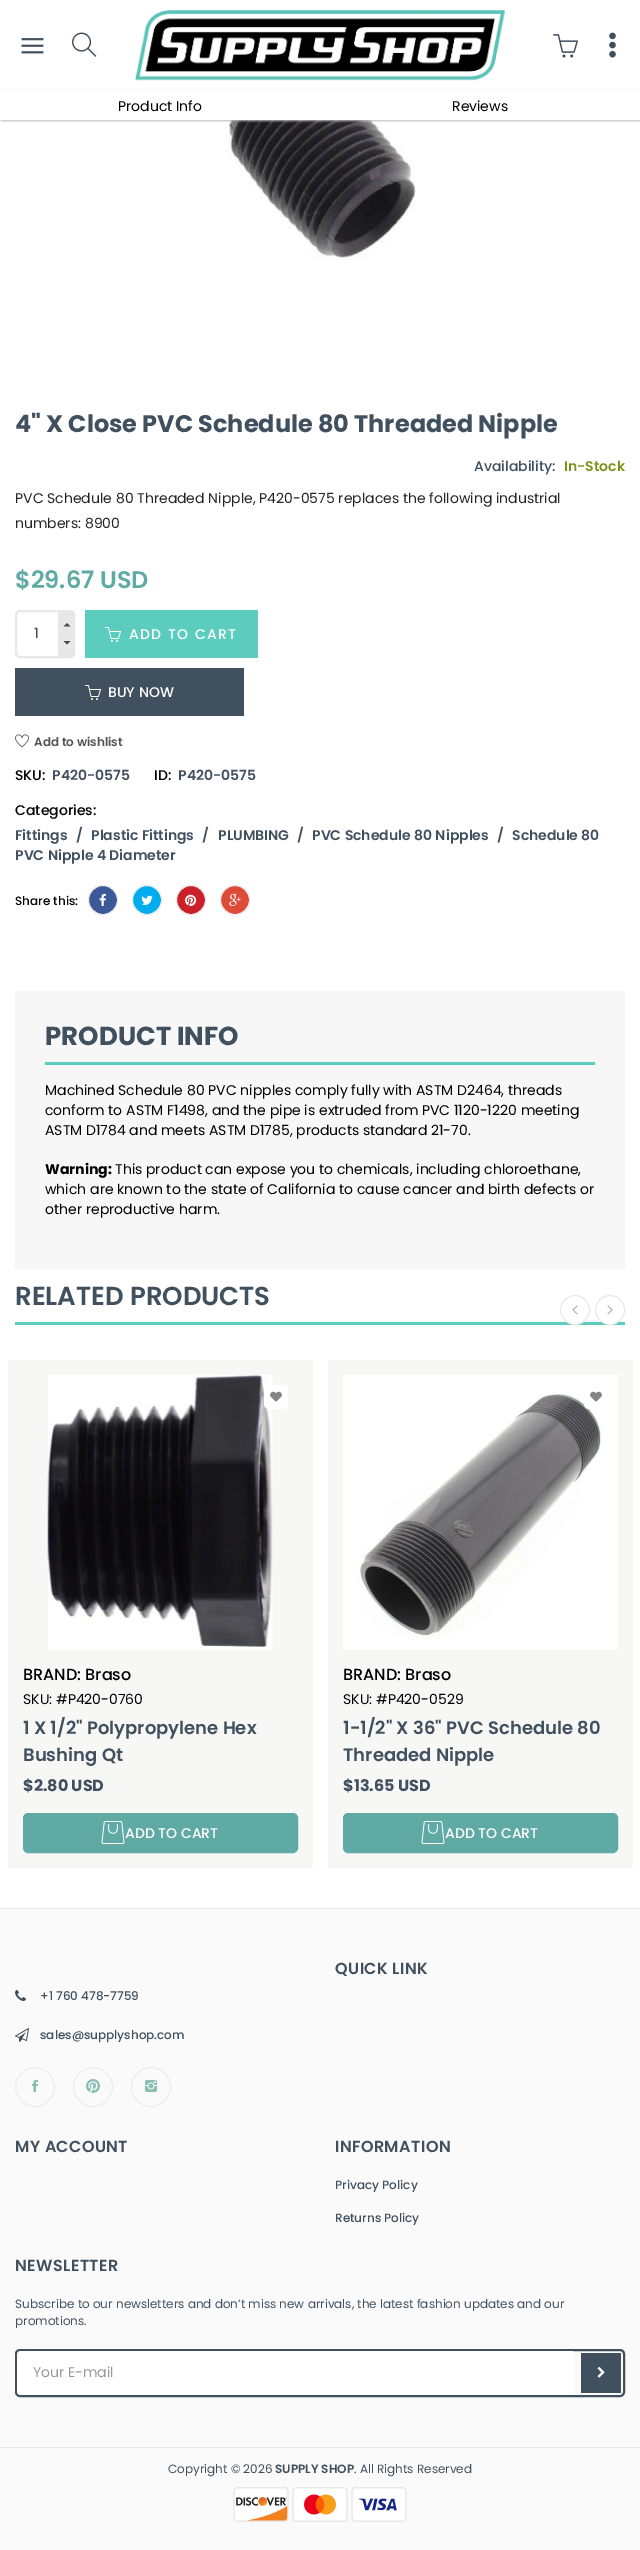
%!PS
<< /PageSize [640 2550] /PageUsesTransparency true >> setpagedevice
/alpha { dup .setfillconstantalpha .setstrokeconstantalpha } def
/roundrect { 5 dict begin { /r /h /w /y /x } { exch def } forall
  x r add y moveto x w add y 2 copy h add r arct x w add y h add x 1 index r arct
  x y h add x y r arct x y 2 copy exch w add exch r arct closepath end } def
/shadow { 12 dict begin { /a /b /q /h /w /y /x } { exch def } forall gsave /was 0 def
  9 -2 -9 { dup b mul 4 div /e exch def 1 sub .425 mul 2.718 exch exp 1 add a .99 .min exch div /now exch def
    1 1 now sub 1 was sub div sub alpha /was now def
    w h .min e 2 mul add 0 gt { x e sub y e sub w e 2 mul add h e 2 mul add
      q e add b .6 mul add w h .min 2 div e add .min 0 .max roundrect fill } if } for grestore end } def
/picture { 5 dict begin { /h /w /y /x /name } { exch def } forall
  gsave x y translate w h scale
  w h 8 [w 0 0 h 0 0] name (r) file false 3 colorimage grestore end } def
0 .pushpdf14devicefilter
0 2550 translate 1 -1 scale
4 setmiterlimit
1 setgray
0 0 640 2550 rectfill
(img1.rgb) 21 38 23 16 picture
(img2.rgb) 72 32 25 25 picture
(img3.rgb) 135 10 370 71 picture
(img4.rgb) 553 34 25 24 picture
(img5.rgb) 609 32 7 26 picture
(img6.rgb) 228 120 188 141 picture
gsave
newpath 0 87 moveto 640 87 lineto 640 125 lineto 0 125 lineto closepath 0 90 moveto 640 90 lineto 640 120 lineto 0 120 lineto closepath eoclip newpath
0.725 setgray
1 91 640 30 0 1 1 shadow
grestore
/Poppins-Regular [14 0 0 -14 0 0] selectfont
0 setgray
118 111 moveto (Product Info) show
452 111 moveto (Reviews) show
/Poppins-Bold [24 0 0 -24 0 0] selectfont
0.251 0.314 0.373 setrgbcolor
15 432 moveto (4" X Close PVC Schedule 80 Threaded Nipple) show
/Poppins-Medium [14 0 0 -14 0 0] selectfont
474 471 moveto (Availability:) show
/Poppins-SemiBold [14 0 0 -14 0 0] selectfont
0.494 0.569 0.086 setrgbcolor
564 471 moveto (In-Stock) show
/Poppins-Regular [14 0 0 -14 0 0] selectfont
0.141 setgray
15 503 moveto (PVC Schedule 80 Threaded Nipple, P420-0575 replaces the following industrial) show
15 528 moveto (numbers: 8900) show
/Poppins-SemiBold [24 0 0 -24 0 0] selectfont
0.376 0.667 0.651 setrgbcolor
15 588 moveto ($29.67 USD) show
0.91 setgray
2 setlinewidth
16 611 58 46 4 roundrect stroke
/Poppins-Medium [14 0 0 -14 0 0] selectfont
0.251 0.314 0.373 setrgbcolor
34 638 moveto (1) show
0.91 setgray
58 612 17 44 rectfill
0.251 0.314 0.373 setrgbcolor
newpath 63.5 626.5 moveto 67 623 lineto 70.5 626.5 lineto closepath 63.5 641 moveto 67 644.5 lineto 70.5 641 lineto closepath fill
0.361 0.8 0.745 setrgbcolor
85 610 173 48 rectfill
(img7.rgb) 105 627 16 15 picture
1 setgray
129 639 moveto 1.4 0 (ADD TO CART) ashow
0.251 0.314 0.373 setrgbcolor
15 668 229 48 rectfill
(img8.rgb) 85 685 16 15 picture
1 setgray
108 697 moveto (BUY NOW) show
(img9.rgb) 15 734 14 14 picture
/Poppins-SemiBold [12 0 0 -12 0 0] selectfont
0.333 setgray
34 746 moveto (Add to wishlist) show
/Poppins-Medium [14 0 0 -14 0 0] selectfont
0 setgray
15 780 moveto (SKU:) show
/Poppins-SemiBold [14 0 0 -14 0 0] selectfont
0.251 0.314 0.373 setrgbcolor
52 780 moveto (P420-0575) show
/Poppins-Medium [14 0 0 -14 0 0] selectfont
0 setgray
154 780 moveto (ID:) show
/Poppins-SemiBold [14 0 0 -14 0 0] selectfont
0.251 0.314 0.373 setrgbcolor
178 780 moveto (P420-0575) show
/Poppins-Medium [14 0 0 -14 0 0] selectfont
0 setgray
15 815 moveto (Categories:) show
/Poppins-SemiBold [14 0 0 -14 0 0] selectfont
0.251 0.314 0.373 setrgbcolor
15 840 moveto (Fittings) show
76 840 moveto (/) show
91 840 moveto (Plastic Fittings) show
202 840 moveto (/) show
218 840 moveto (PLUMBING) show
297 840 moveto (/) show
312 840 moveto (PVC Schedule 80 Nipples) show
497 840 moveto (/) show
512 840 moveto (Schedule 80) show
15 860 moveto (PVC Nipple 4 Diameter) show
/Poppins-Medium [12 0 0 -12 0 0] selectfont
0 setgray
15 905 moveto (Share this:) show
0.231 0.349 0.596 setrgbcolor
newpath 103 900 14.5 0 360 arc closepath gsave fill grestore
0.925 setgray
1 setlinewidth
stroke
(img10.rgb) 99 893 7 13 picture
0 0.675 0.929 setrgbcolor
newpath 147 900 14.5 0 360 arc closepath gsave fill grestore
0.925 setgray
stroke
(img11.rgb) 141 895 12 10 picture
0.796 0.125 0.153 setrgbcolor
newpath 191 900 14.5 0 360 arc closepath gsave fill grestore
0.925 setgray
stroke
(img12.rgb) 185 894 12 12 picture
0.867 0.294 0.224 setrgbcolor
newpath 235 900 14.5 0 360 arc closepath gsave fill grestore
0.925 setgray
stroke
(img13.rgb) 229 893 12 13 picture
0.969 setgray
15 991 610 278 rectfill
0.361 0.8 0.745 setrgbcolor
45 1062 550 3 rectfill
/Poppins-Bold [26 0 0 -26 0 0] selectfont
0.251 0.314 0.373 setrgbcolor
45 1045 moveto (PRODUCT INFO) show
/Poppins-Regular [14 0 0 -14 0 0] selectfont
0 setgray
45 1095 moveto (Machined Schedule 80 PVC nipples comply fully with ASTM D2464, threads) show
45 1115 moveto (conform to ASTM F1498, and the pipe is extruded from PVC 1120-1220 meeting) show
45 1135 moveto (ASTM D1784 and meets ASTM D1785, products standard 21-70.) show
/Poppins-Bold [14 0 0 -14 0 0] selectfont
45 1174 moveto (Warning:) show
/Poppins-Regular [14 0 0 -14 0 0] selectfont
115 1174 moveto (This product can expose you to chemicals, including chloroethane,) show
45 1194 moveto (which are known to the state of California to cause cancer and birth defects or) show
45 1214 moveto (other reproductive harm.) show
0.361 0.8 0.745 setrgbcolor
15 1322 610 3 rectfill
/Poppins-SemiBold [26 0 0 -26 0 0] selectfont
0.251 0.314 0.373 setrgbcolor
15 1305 moveto (RELATED PRODUCTS) show
1 setgray
newpath 575 1310 14.5 0 360 arc closepath gsave fill grestore
0.914 setgray
stroke
(img14.rgb) 572 1305 6 10 picture
1 setgray
newpath 610 1310 14.5 0 360 arc closepath gsave fill grestore
0.914 setgray
stroke
(img15.rgb) 607 1305 6 10 picture
0.969 0.969 0.965 setrgbcolor
8 1360 305 508 rectfill
(img16.rgb) 47 1375 226 275 picture
1 setgray
264 1385 24 24 5 roundrect fill
(img17.rgb) 270 1391 12 11 picture
/Poppins-Medium [16 0 0 -16 0 0] selectfont
0 setgray
23 1680 moveto (BRAND: Braso) show
/Poppins-Regular [14 0 0 -14 0 0] selectfont
23 1704 moveto (SKU: #P420-0760) show
/Poppins-SemiBold [18 0 0 -18 0 0] selectfont
0.251 0.314 0.373 setrgbcolor
23 1734 moveto (1 X 1/2" Polypropylene Hex) show
23 1761 moveto (Bushing Qt) show
/Poppins-Bold [16 0 0 -16 0 0] selectfont
23 1791 moveto ($2.80 USD) show
0.376 0.667 0.651 setrgbcolor
23.5 1813.5 274 39 4.5 roundrect gsave fill grestore
stroke
(img18.rgb) 101 1821 24 23 picture
/Poppins-Medium [14 0 0 -14 0 0] selectfont
1 setgray
125 1838 moveto (ADD TO CART) show
0.969 0.969 0.965 setrgbcolor
328 1360 305 508 rectfill
(img19.rgb) 343 1375 275 275 picture
1 setgray
584 1385 24 24 5 roundrect fill
(img17.rgb) 590 1391 12 11 picture
/Poppins-Medium [16 0 0 -16 0 0] selectfont
0 setgray
343 1680 moveto (BRAND: Braso) show
/Poppins-Regular [14 0 0 -14 0 0] selectfont
343 1704 moveto (SKU: #P420-0529) show
/Poppins-SemiBold [18 0 0 -18 0 0] selectfont
0.251 0.314 0.373 setrgbcolor
343 1734 moveto (1-1/2" X 36" PVC Schedule 80) show
343 1761 moveto (Threaded Nipple) show
/Poppins-Bold [16 0 0 -16 0 0] selectfont
343 1791 moveto ($13.65 USD) show
0.376 0.667 0.651 setrgbcolor
343.5 1813.5 274 39 4.5 roundrect gsave fill grestore
stroke
(img18.rgb) 421 1821 24 23 picture
/Poppins-Medium [14 0 0 -14 0 0] selectfont
1 setgray
445 1838 moveto (ADD TO CART) show
0.98 setgray
0 1909 640 641 rectfill
0.91 setgray
0 1908 640 1 rectfill
/Poppins-SemiBold [16 0 0 -16 0 0] selectfont
0.251 0.314 0.373 setrgbcolor
335 1974 moveto 0.4 0 (QUICK LINK) ashow
(img20.rgb) 15 1990 11 11 picture
/Poppins-Medium [12 0 0 -12 0 0] selectfont
40 2000 moveto (+1 760 478-7759) show
(img21.rgb) 15 2028 14 14 picture
40 2039 moveto (sales@supplyshop.com) show
0.925 setgray
newpath 35 2087 19.5 0 360 arc closepath stroke
(img22.rgb) 32 2080 6 12 picture
newpath 93 2087 19.5 0 360 arc closepath stroke
(img23.rgb) 86 2079 14 14 picture
newpath 151 2087 19.5 0 360 arc closepath stroke
(img24.rgb) 145 2080 12 12 picture
/Poppins-SemiBold [16 0 0 -16 0 0] selectfont
0.251 0.314 0.373 setrgbcolor
15 2152 moveto 0.4 0 (MY ACCOUNT) ashow
335 2152 moveto 0.4 0 (INFORMATION) ashow
/Poppins-Medium [12 0 0 -12 0 0] selectfont
335 2189 moveto (Privacy Policy) show
335 2222 moveto (Returns Policy) show
/Poppins-SemiBold [16 0 0 -16 0 0] selectfont
15 2271 moveto 0.4 0 (NEWSLETTER) ashow
/Poppins-Regular [12 0 0 -12 0 0] selectfont
15 2308 moveto (Subscribe to our newsletters and don’t miss new arrivals, the latest fashion updates and our) show
15 2325 moveto (promotions.) show
2 setlinewidth
16 2350 608 46 4 roundrect stroke
1 setgray
17 2351 558 44 4 roundrect fill
/Poppins-Regular [14 0 0 -14 0 0] selectfont
0.6 setgray
33 2377 moveto (Your E-mail) show
0.251 0.314 0.373 setrgbcolor
581 2353 40 40 rectfill
(img25.rgb) 597 2366 8 12 picture
0.91 setgray
0 2447 640 1 rectfill
/Poppins-Regular [12 0 0 -12 0 0] selectfont
0.251 0.314 0.373 setrgbcolor
168 2473 moveto (Copyright © 2026) show
/Poppins-SemiBold [12 0 0 -12 0 0] selectfont
275 2473 moveto (SUPPLY SHOP) show
/Poppins-Regular [12 0 0 -12 0 0] selectfont
354 2473 moveto (. All Rights Reserved) show
(img26.rgb) 233 2487 56 35 picture
(img27.rgb) 292 2487 56 35 picture
(img28.rgb) 351 2487 56 35 picture
.poppdf14devicefilter showpage
